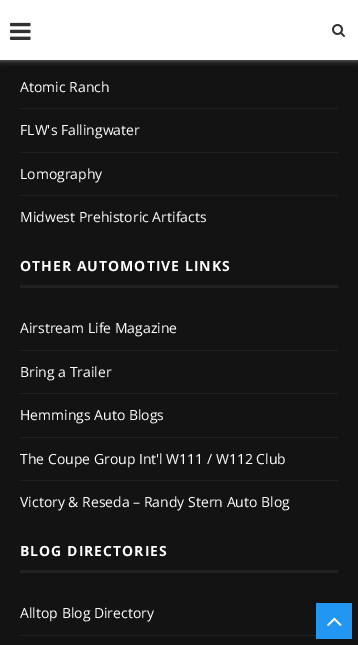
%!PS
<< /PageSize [358 645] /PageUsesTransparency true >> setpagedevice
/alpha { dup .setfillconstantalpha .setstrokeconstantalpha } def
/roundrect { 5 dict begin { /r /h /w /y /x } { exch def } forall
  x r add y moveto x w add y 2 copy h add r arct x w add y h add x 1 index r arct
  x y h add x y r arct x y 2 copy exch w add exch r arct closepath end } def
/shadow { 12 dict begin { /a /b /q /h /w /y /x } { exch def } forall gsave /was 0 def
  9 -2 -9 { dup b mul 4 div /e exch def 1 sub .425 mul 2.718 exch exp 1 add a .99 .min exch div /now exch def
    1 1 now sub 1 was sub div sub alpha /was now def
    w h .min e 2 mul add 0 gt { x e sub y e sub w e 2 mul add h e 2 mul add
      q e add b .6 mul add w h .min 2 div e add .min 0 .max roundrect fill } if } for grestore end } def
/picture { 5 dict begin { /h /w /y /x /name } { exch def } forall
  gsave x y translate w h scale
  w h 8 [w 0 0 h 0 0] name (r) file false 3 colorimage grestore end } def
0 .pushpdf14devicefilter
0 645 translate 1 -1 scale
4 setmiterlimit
0.075 setgray
0 0 358 645 rectfill
0.745 setgray
0 1 358 60 0 2.5 0.46 shadow
1 setgray
0 0 358 60 rectfill
(img1.rgb) 10 22 21 18 picture
(img2.rgb) 332 24 13 13 picture
0.129 setgray
20 108 318 1 rectfill
/OpenSans-Regular [14 0 0 -14 0 0] selectfont
1 setgray
20 92 moveto (Atomic Ranch) show
0.129 setgray
20 152 318 1 rectfill
1 setgray
20 135 moveto (FLW's Fallingwater) show
0.129 setgray
20 195 318 1 rectfill
1 setgray
20 179 moveto (Lomography) show
20 222 moveto (Midwest Prehistoric Artifacts) show
0.129 setgray
20 285 318 3 rectfill
/OpenSans-Bold [14 0 0 -14 0 0] selectfont
1 setgray
20 271 moveto 1 0 (OTHER AUTOMOTIVE LINKS) ashow
0.129 setgray
20 350 318 1 rectfill
/OpenSans-Regular [14 0 0 -14 0 0] selectfont
1 setgray
20 333 moveto (Airstream Life Magazine) show
0.129 setgray
20 393 318 1 rectfill
1 setgray
20 377 moveto (Bring a Trailer) show
0.129 setgray
20 437 318 1 rectfill
1 setgray
20 420 moveto (Hemmings Auto Blogs) show
0.129 setgray
20 480 318 1 rectfill
1 setgray
20 464 moveto (The Coupe Group Int'l W111 / W112 Club) show
20 507 moveto (Victory & Reseda – Randy Stern Auto Blog) show
0.129 setgray
20 570 318 3 rectfill
/OpenSans-Bold [14 0 0 -14 0 0] selectfont
1 setgray
20 556 moveto 1 0 (BLOG DIRECTORIES) ashow
0.129 setgray
20 635 296 1 rectfill
/OpenSans-Regular [14 0 0 -14 0 0] selectfont
1 setgray
20 618 moveto (Alltop Blog Directory) show
0.129 0.588 0.953 setrgbcolor
316 603 36 36 rectfill
(img3.rgb) 327 617 15 9 picture
.poppdf14devicefilter showpage
